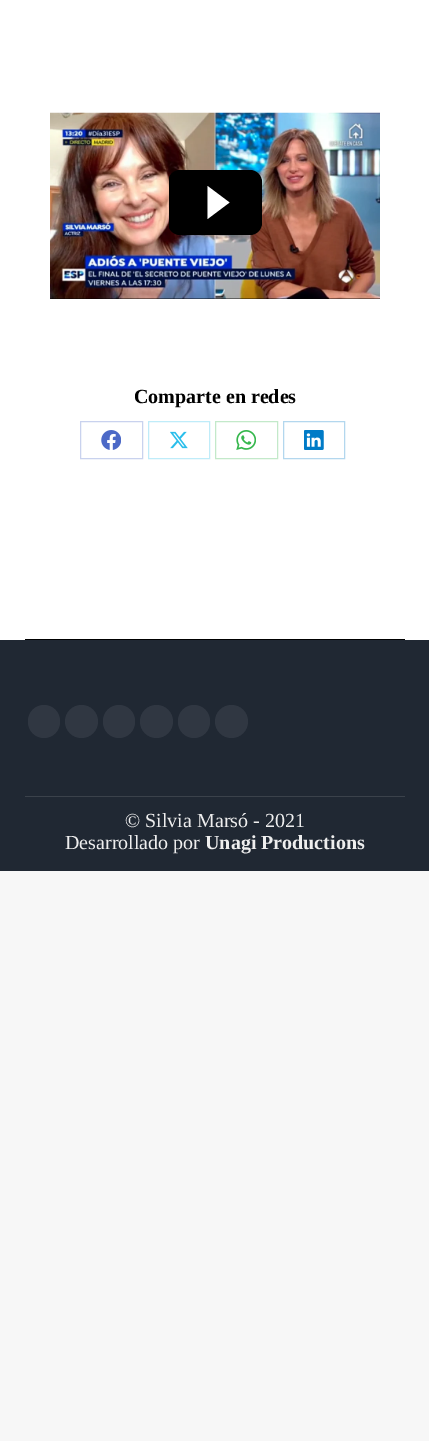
%!PS
<< /PageSize [429 1441] >> setpagedevice
/roundrect { 5 dict begin { /r /h /w /y /x } { exch def } forall
  x r add y moveto x w add y 2 copy h add r arct x w add y h add x 1 index r arct
  x y h add x y r arct x y 2 copy exch w add exch r arct closepath end } def
/picture { 5 dict begin { /h /w /y /x /name } { exch def } forall
  gsave x y translate w h scale
  w h 8 [w 0 0 h 0 0] name (r) file false 3 colorimage grestore end } def
0 1441 translate 1 -1 scale
4 setmiterlimit
0.969 setgray
0 0 429 1441 rectfill
1 setgray
0 0 429 640 rectfill
0 setgray
50 298 330 1 rectfill
(img1.rgb) 50 112 330 187 picture
gsave
169 170 94 66 rectclip
newpath 180 170 moveto 174 170 168 175 168 182 curveto 168 223 lineto 168 230 174 235 180 235 curveto 250 235 lineto 256 235 262 230 262 223 curveto 262 182 lineto 262 175 256 170 250 170 curveto closepath fill
grestore
1 setgray
newpath 207.5 219 moveto 207.5 186 lineto 229.5 202.5 lineto closepath fill
/LiberationSerif-Bold [20 0 0 -20 0 0] selectfont
0 setgray
134 403 moveto (Comparte en redes) show
0.788 0.824 0.933 setrgbcolor
80.5 421.5 62 37 rectstroke
(img2.rgb) 101 430 20 20 picture
0.749 0.925 0.976 setrgbcolor
148.5 421.5 61 37 rectstroke
(img3.rgb) 170 431 18 18 picture
0.765 0.914 0.792 setrgbcolor
215.5 421.5 62 37 rectstroke
(img4.rgb) 236 430 20 20 picture
0.702 0.843 0.933 setrgbcolor
283.5 421.5 61 37 rectstroke
(img5.rgb) 304 430 20 20 picture
0 setgray
25 639 380 1 rectfill
0.125 0.157 0.2 setrgbcolor
0 640 429 231 rectfill
0.188 0.216 0.259 setrgbcolor
28 705 32 33 16 roundrect fill
newpath 81.5 721.5 16.5 0 360 arc closepath fill
103 705 32 33 16 roundrect fill
newpath 156.5 721.5 16.5 0 360 arc closepath fill
178 705 32 33 16 roundrect fill
newpath 231.5 721.5 16.5 0 360 arc closepath fill
0.231 0.259 0.294 setrgbcolor
25 796 380 1 rectfill
/LiberationSerif-Regular [20 0 0 -20 0 0] selectfont
0.933 setgray
125 827 moveto (© Silvia Marsó - 2021) show
65 849 moveto (Desarrollado por) show
/LiberationSerif-Bold [20 0 0 -20 0 0] selectfont
205 849 moveto (Unagi Productions) show
showpage
